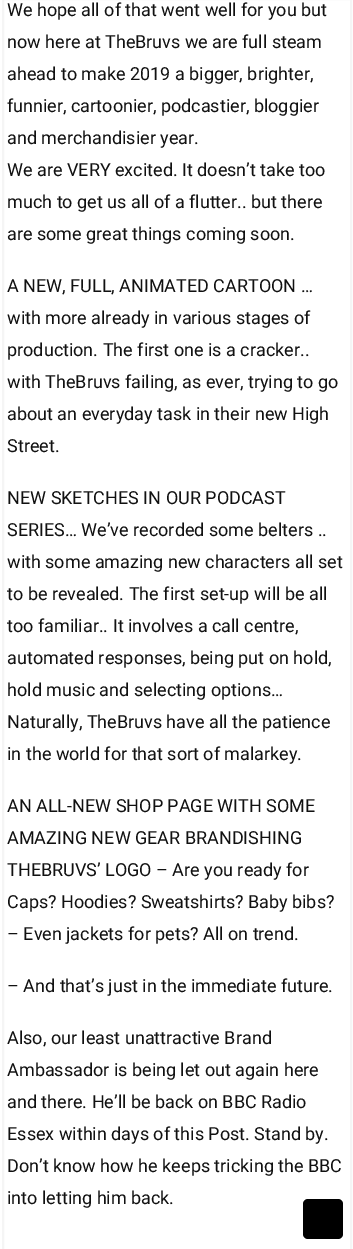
%!PS
<< /PageSize [353 1249] >> setpagedevice
/roundrect { 5 dict begin { /r /h /w /y /x } { exch def } forall
  x r add y moveto x w add y 2 copy h add r arct x w add y h add x 1 index r arct
  x y h add x y r arct x y 2 copy exch w add exch r arct closepath end } def
0 1249 translate 1 -1 scale
4 setmiterlimit
1 setgray
0 0 353 1249 rectfill
0.961 setgray
2 setlinewidth
3 -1 348 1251 rectstroke
/Roboto-Regular [18 0 0 -18 0 0] selectfont
0.067 setgray
7 16 moveto (We hope all of that went well for you but) show
7 48 moveto (now here at TheBruvs we are full steam) show
7 80 moveto (ahead to make 2019 a bigger, brighter,) show
7 112 moveto (funnier, cartoonier, podcastier, bloggier) show
7 144 moveto (and merchandisier year.) show
7 176 moveto (We are VERY excited. It doesn’t take too) show
7 208 moveto (much to get us all of a flutter.. but there) show
7 240 moveto (are some great things coming soon.) show
7 292 moveto (A NEW, FULL, ANIMATED CARTOON …) show
7 324 moveto (with more already in various stages of) show
7 356 moveto (production. The first one is a cracker..) show
7 388 moveto (with TheBruvs failing, as ever, trying to go) show
7 420 moveto (about an everyday task in their new High) show
7 452 moveto (Street.) show
7 504 moveto (NEW SKETCHES IN OUR PODCAST) show
7 536 moveto (SERIES… We’ve recorded some belters ..) show
7 568 moveto (with some amazing new characters all set) show
7 600 moveto (to be revealed. The first set-up will be all) show
7 632 moveto (too familiar.. It involves a call centre,) show
7 664 moveto (automated responses, being put on hold,) show
7 696 moveto (hold music and selecting options…) show
7 728 moveto (Naturally, TheBruvs have all the patience) show
7 760 moveto (in the world for that sort of malarkey.) show
7 812 moveto (AN ALL-NEW SHOP PAGE WITH SOME) show
7 844 moveto (AMAZING NEW GEAR BRANDISHING) show
7 876 moveto (THEBRUVS’ LOGO – Are you ready for) show
7 908 moveto (Caps? Hoodies? Sweatshirts? Baby bibs?) show
7 940 moveto (– Even jackets for pets? All on trend.) show
7 992 moveto (– And that’s just in the immediate future.) show
7 1044 moveto (Also, our least unattractive Brand) show
7 1076 moveto (Ambassador is being let out again here) show
7 1108 moveto (and there. He’ll be back on BBC Radio) show
7 1140 moveto (Essex within days of this Post. Stand by.) show
7 1172 moveto (Don’t know how he keeps tricking the BBC) show
7 1204 moveto (into letting him back.) show
0 setgray
303 1199 40 40 5 roundrect fill
showpage
